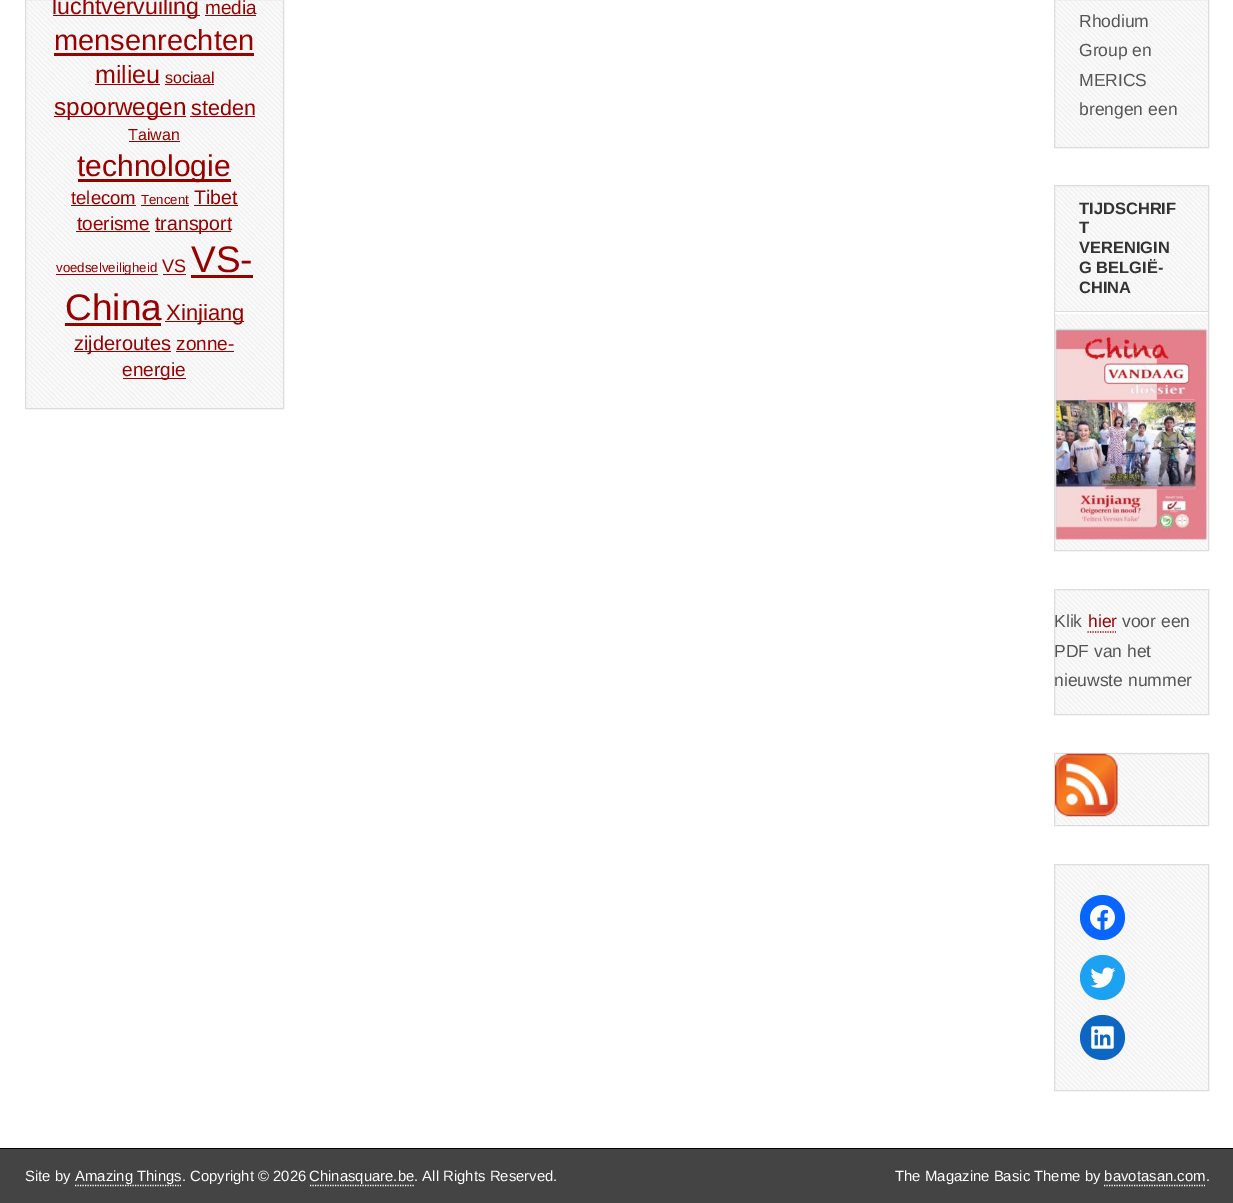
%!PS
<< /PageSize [1233 1203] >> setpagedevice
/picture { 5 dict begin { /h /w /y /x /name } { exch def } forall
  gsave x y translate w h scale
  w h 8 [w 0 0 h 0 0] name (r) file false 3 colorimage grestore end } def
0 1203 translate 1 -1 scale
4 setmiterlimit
1 setgray
0 0 1233 1203 rectfill
(img1.rgb) 26 0 257 408 picture
0.867 setgray
25.5 -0.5 258 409 rectstroke
0.6 0 0 setrgbcolor
53 15 147 1 rectfill
/LiberationSans-Regular [23.25 0 0 -23.25 0 0] selectfont
52 14 moveto (luchtvervuiling) show
/LiberationSans-Regular [19 0 0 -19 0 0] selectfont
205 14 moveto (media) show
205 15 51 1 rectfill
/LiberationSans-Regular [29 0 0 -29 0 0] selectfont
54 50 moveto (mensenrechten) show
54 53 200 3 rectfill
/LiberationSans-Regular [25 0 0 -25 0 0] selectfont
95 83 moveto (milieu) show
95 84 65 1 rectfill
/LiberationSans-Regular [16 0 0 -16 0 0] selectfont
165 83 moveto (sociaal) show
165 84 49 1 rectfill
54 116 132 1 rectfill
/LiberationSans-Regular [24.25 0 0 -24.25 0 0] selectfont
54 115 moveto (spoorwegen) show
/LiberationSans-Regular [21.5 0 0 -21.5 0 0] selectfont
191 115 moveto (steden) show
190 116 65 1 rectfill
/LiberationSans-Regular [16 0 0 -16 0 0] selectfont
128 140 moveto (Taiwan) show
129 141 51 1 rectfill
78 179 153 3 rectfill
/LiberationSans-Regular [30 0 0 -30 0 0] selectfont
77 176 moveto (technologie) show
/LiberationSans-Regular [18.5 0 0 -18.5 0 0] selectfont
71 204 moveto (telecom) show
71 205 65 1 rectfill
/LiberationSans-Regular [13.25 0 0 -13.25 0 0] selectfont
141 204 moveto (Tencent) show
141 205 48 1 rectfill
/LiberationSans-Regular [19.5 0 0 -19.5 0 0] selectfont
194 204 moveto (Tibet) show
194 205 44 1 rectfill
/LiberationSans-Regular [19 0 0 -19 0 0] selectfont
77 230 moveto (toerisme) show
76 231 74 1 rectfill
155 231 76 1 rectfill
/LiberationSans-Regular [19.5 0 0 -19.5 0 0] selectfont
155 230 moveto (transport) show
56 274 102 1 rectfill
/LiberationSans-Regular [13.25 0 0 -13.25 0 0] selectfont
56 272 moveto (voedselveiligheid) show
/LiberationSans-Regular [18 0 0 -18 0 0] selectfont
162 272 moveto (VS) show
163 274 23 1 rectfill
/LiberationSans-Regular [37 0 0 -37 0 0] selectfont
191 272 moveto (VS-) show
191 275 62 3 rectfill
65 320 moveto (China) show
65 323 96 3 rectfill
165 321 79 1 rectfill
/LiberationSans-Regular [22 0 0 -22 0 0] selectfont
166 320 moveto (Xinjiang) show
74 351 97 1 rectfill
/LiberationSans-Regular [20 0 0 -20 0 0] selectfont
74 350 moveto (zijderoutes) show
/LiberationSans-Regular [19 0 0 -19 0 0] selectfont
176 350 moveto (zonne-) show
176 351 58 1 rectfill
123 378 63 1 rectfill
122 376 moveto (energie) show
(img2.rgb) 1055 0 153 147 picture
0.867 setgray
1054.5 -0.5 154 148 rectstroke
/LiberationSans-Regular [17.5 0 0 -17.5 0 0] selectfont
0.333 setgray
1079 27 moveto (Rhodium) show
1079 56 moveto (Group en) show
1079 86 moveto (MERICS) show
1079 115 moveto (brengen een) show
(img3.rgb) 1055 186 153 364 picture
0.867 setgray
1054.5 185.5 154 365 rectstroke
1 setgray
newpath 1055 312 moveto 1055 314 lineto 1208 314 lineto 1208 188 lineto 1208 312 lineto closepath fill
0.867 setgray
1055 311 153 1 rectfill
/LiberationSans-Bold [16.5 0 0 -16.5 0 0] selectfont
0.2 setgray
1079 214 moveto (TIJDSCHRIF) show
1079 233 moveto (T) show
1079 253 moveto (VERENIGIN) show
1079 273 moveto (G BELGIË-) show
1079 293 moveto (CHINA) show
(img4.rgb) 1055 328 153 212 picture
(img5.rgb) 1055 590 153 124 picture
0.867 setgray
1054.5 589.5 154 125 rectstroke
/LiberationSans-Regular [17.5 0 0 -17.5 0 0] selectfont
0.333 setgray
1054 627 moveto (Klik) show
0.6 0 0 setrgbcolor
1088 627 moveto (hier) show
1.2 setlinewidth
[1.25 1.25] 0 setdash
newpath 1087.5 632 moveto 1116 632 lineto stroke
0.333 setgray
1122 627 moveto (voor een) show
1054 657 moveto (PDF van het) show
1054 686 moveto (nieuwste nummer) show
(img6.rgb) 1054 752 155 73 picture
0.867 setgray
1 setlinewidth
[] 0 setdash
1054.5 753.5 154 72 rectstroke
(img7.rgb) 1055 753 63 64 picture
(img8.rgb) 1055 865 153 225 picture
1054.5 864.5 154 226 rectstroke
0.031 0.4 1 setrgbcolor
newpath 1102.5 917.5 22.5 0 360 arc closepath fill
(img9.rgb) 1090 905 25 25 picture
0.114 0.631 0.949 setrgbcolor
newpath 1102.5 977.5 22.5 0 360 arc closepath fill
(img10.rgb) 1090 967 26 21 picture
0.051 0.4 0.761 setrgbcolor
newpath 1102.5 1037.5 22.5 0 360 arc closepath fill
(img11.rgb) 1091 1026 23 23 picture
0.267 setgray
0 1149 1233 54 rectfill
0 setgray
0 1148 1233 1 rectfill
/LiberationSans-Regular [14.9 0 0 -14.9 0 0] selectfont
1 setgray
25 1181 moveto (Site by) show
1.2 setlinewidth
[1.25 1.25] 0 setdash
newpath 75 1185.5 moveto 181 1185.5 lineto stroke
75 1181 moveto (Amazing Things. Copyright © 2026) show
newpath 310 1185.5 moveto 415 1185.5 lineto stroke
309 1181 moveto (Chinasquare.be. All Rights Reserved.) show
895 1181 moveto (The Magazine Basic Theme by bavotasan.com.) show
newpath 1104 1185.5 moveto 1205 1185.5 lineto stroke
showpage
